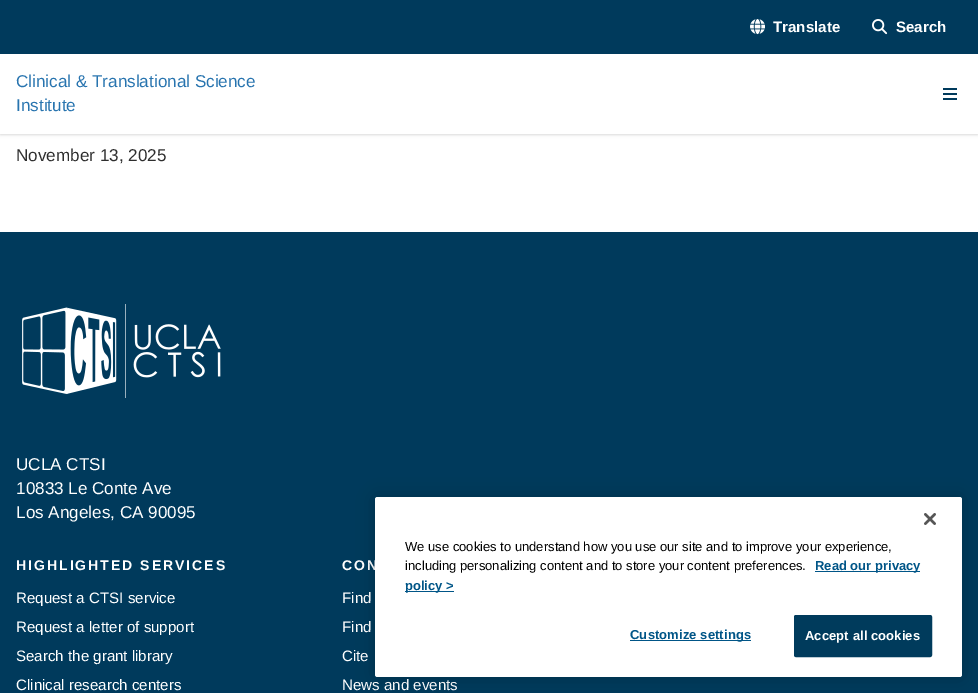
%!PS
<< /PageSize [978 693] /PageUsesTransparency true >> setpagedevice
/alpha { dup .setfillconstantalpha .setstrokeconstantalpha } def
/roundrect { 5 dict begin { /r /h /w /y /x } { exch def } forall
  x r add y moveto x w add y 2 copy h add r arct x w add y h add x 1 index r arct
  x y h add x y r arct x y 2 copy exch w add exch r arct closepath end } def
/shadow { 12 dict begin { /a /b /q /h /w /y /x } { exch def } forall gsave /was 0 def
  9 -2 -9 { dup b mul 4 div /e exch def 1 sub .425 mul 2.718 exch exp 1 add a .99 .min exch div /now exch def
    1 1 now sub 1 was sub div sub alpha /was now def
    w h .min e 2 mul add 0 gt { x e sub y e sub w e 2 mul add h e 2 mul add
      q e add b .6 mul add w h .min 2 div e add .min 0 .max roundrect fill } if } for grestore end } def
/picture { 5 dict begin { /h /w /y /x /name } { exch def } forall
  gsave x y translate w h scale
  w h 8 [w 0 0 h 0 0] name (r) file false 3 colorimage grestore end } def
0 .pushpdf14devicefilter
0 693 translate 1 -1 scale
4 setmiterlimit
1 setgray
0 0 978 693 rectfill
0 setgray
1 2 976 132 0 1 0.1 shadow
0 1 978 134 0 1.5 0.1 shadow
1 setgray
0 54 978 80 rectfill
0 0.227 0.361 setrgbcolor
0 0 978 54 rectfill
(img1.rgb) 750 19 15 16 picture
/LiberationSans-Bold [15.1 0 0 -15.1 0 0] selectfont
1 setgray
773 32 moveto (Translate) show
(img2.rgb) 872 19 16 16 picture
896 32 moveto (Search) show
/LiberationSans-Regular [17.1 0 0 -17.1 0 0] selectfont
0.157 0.455 0.686 setrgbcolor
16 87 moveto (Clinical & Translational Science) show
16 111 moveto (Institute) show
0 0.227 0.361 setrgbcolor
943 88 14 2 rectfill
943 93 14 2 rectfill
943 98 14 2 rectfill
0.18 setgray
16 161 moveto (November 13, 2025) show
0 0.227 0.361 setrgbcolor
0 232 978 461 rectfill
(img3.rgb) 22 304 199 94 picture
1 setgray
16 470 moveto (UCLA CTSI) show
16 494 moveto (10833 Le Conte Ave) show
16 518 moveto (Los Angeles, CA 90095) show
/LiberationSans-Bold [14 0 0 -14 0 0] selectfont
16 570 moveto 2 0 (HIGHLIGHTED SERVICES) ashow
/LiberationSans-Regular [15.1 0 0 -15.1 0 0] selectfont
16 603 moveto (Request a CTSI service) show
16 632 moveto (Request a letter of support) show
16 661 moveto (Search the grant library) show
16 690 moveto (Clinical research centers) show
/LiberationSans-Bold [14 0 0 -14 0 0] selectfont
342 570 moveto 2 0 (CON) ashow
/LiberationSans-Regular [15.1 0 0 -15.1 0 0] selectfont
342 603 moveto (Find) show
342 632 moveto (Find) show
342 661 moveto (Cite) show
342 690 moveto (News and events) show
0 setgray
375 497 587 180 2.5 9 0.2 shadow
1 setgray
375 497 587 180 2.5 roundrect fill
(img4.rgb) 924 513 12 12 picture
/LiberationSans-Regular [13 0 0 -13 0 0] selectfont
0 setgray
405 551 moveto (We use cookies to understand how you use our site and to improve your experience,) show
405 570 moveto (including personalizing content and to store your content preferences.) show
0 0.333 0.529 setrgbcolor
815 571 105 1 rectfill
/LiberationSans-Bold [13 0 0 -13 0 0] selectfont
815 570 moveto (Read our privacy) show
405 591 49 1 rectfill
405 590 moveto (policy >) show
630 640 121 1 rectfill
630 639 moveto 0.1 0 (Customize settings) ashow
0 0.231 0.361 setrgbcolor
794.5 615.5 137 41 1.5 roundrect gsave fill grestore
stroke
1 setgray
805 640 moveto 0.1 0 (Accept all cookies) ashow
.poppdf14devicefilter showpage
